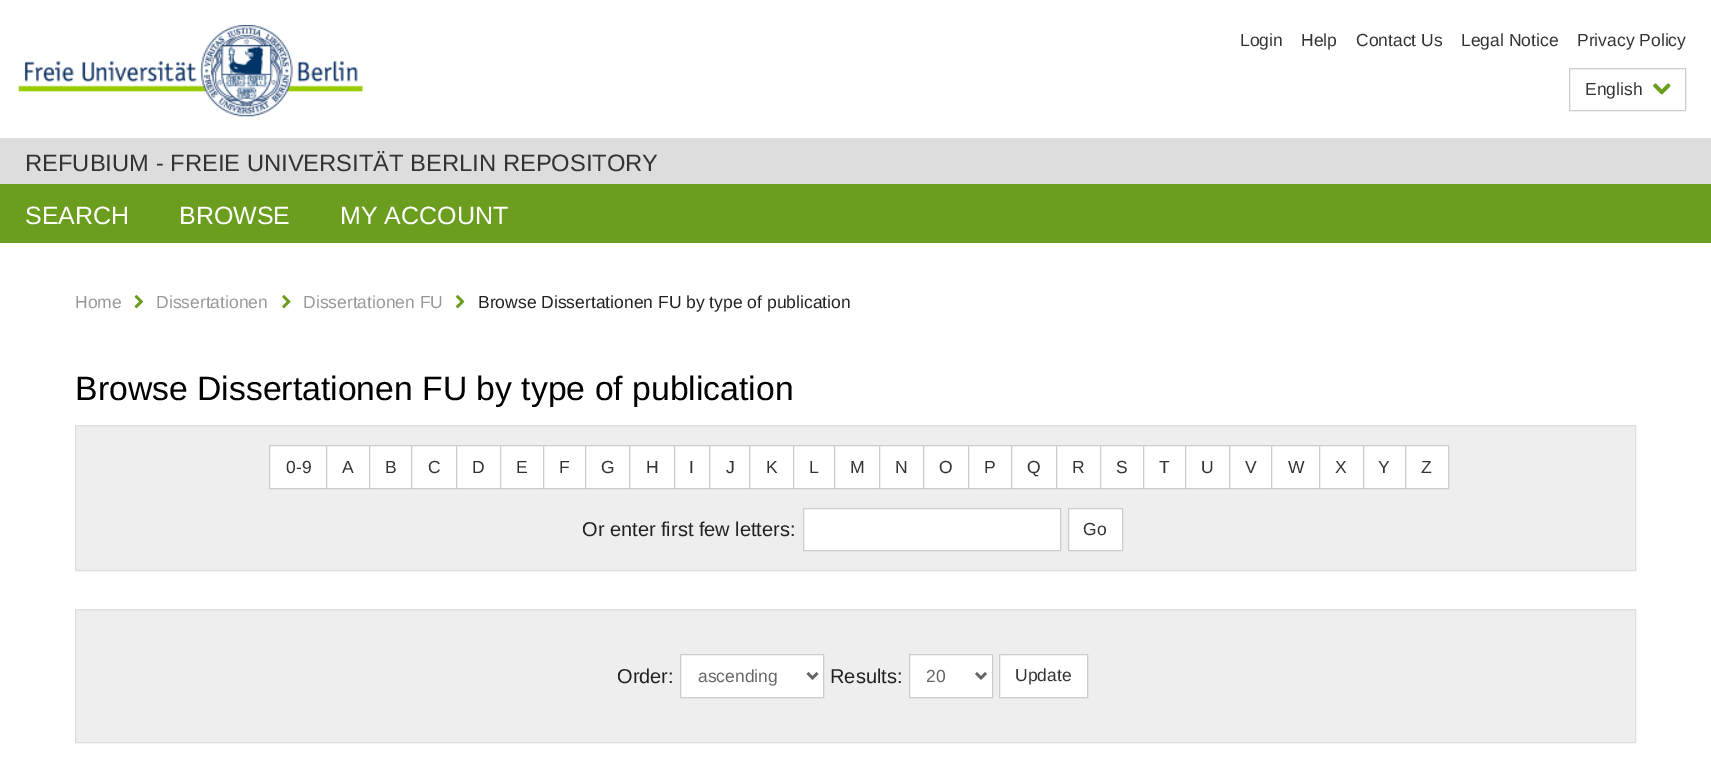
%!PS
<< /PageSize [1711 766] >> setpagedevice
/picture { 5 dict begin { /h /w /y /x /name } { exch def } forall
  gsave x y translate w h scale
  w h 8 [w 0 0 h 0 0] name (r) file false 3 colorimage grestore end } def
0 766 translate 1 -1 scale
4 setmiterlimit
1 setgray
0 0 1711 766 rectfill
(img1.rgb) 18 25 345 92 picture
/LiberationSans-Regular [17.5 0 0 -17.5 0 0] selectfont
0.2 setgray
1240 46 moveto (Login) show
1301 46 moveto (Help) show
1356 46 moveto (Contact Us) show
1461 46 moveto (Legal Notice) show
1577 46 moveto (Privacy Policy) show
0.8 setgray
1569.5 68.5 116 42 rectstroke
0.2 setgray
1585 95 moveto (English) show
(img2.rgb) 1653 83 18 12 picture
0.867 setgray
0 138 1711 46 rectfill
/LiberationSans-Regular [23.75 0 0 -23.75 0 0] selectfont
0.2 setgray
25 171 moveto (REFUBIUM - FREIE UNIVERSITÄT BERLIN REPOSITORY) show
0.42 0.62 0.122 setrgbcolor
0 184 1711 59 rectfill
/LiberationSans-Regular [25 0 0 -25 0 0] selectfont
1 setgray
25 224 moveto (SEARCH) show
179 224 moveto (BROWSE) show
340 224 moveto (MY ACCOUNT) show
/LiberationSans-Regular [17.5 0 0 -17.5 0 0] selectfont
0.6 setgray
75 308 moveto (Home) show
(img3.rgb) 134 295 9 14 picture
156 308 moveto (Dissertationen) show
(img4.rgb) 282 295 9 14 picture
303 308 moveto (Dissertationen FU) show
(img5.rgb) 456 295 9 14 picture
0.133 setgray
478 308 moveto (Browse Dissertationen FU by type of publication) show
/LiberationSans-Regular [33.75 0 0 -33.75 0 0] selectfont
0 setgray
75 400 moveto (Browse Dissertationen FU by type of publication) show
0.933 setgray
newpath 75.5 425.5 moveto 1635.5 425.5 lineto 1635.5 570.5 lineto 75.5 570.5 lineto closepath gsave fill grestore
0.867 setgray
stroke
1 setgray
270 446 56 42 rectfill
0.8 setgray
269.5 445.5 58 43 rectstroke
/LiberationSans-Regular [17.5 0 0 -17.5 0 0] selectfont
0.2 setgray
286 473 moveto (0-9) show
1 setgray
newpath 326.5 445.5 moveto 369.5 445.5 lineto 369.5 488.5 lineto 326.5 488.5 lineto closepath gsave fill grestore
0.8 setgray
stroke
0.2 setgray
342 473 moveto (A) show
1 setgray
370 446 41 42 rectfill
0.8 setgray
369.5 445.5 43 43 rectstroke
0.2 setgray
385 473 moveto (B) show
1 setgray
412 446 44 42 rectfill
0.8 setgray
411.5 445.5 46 43 rectstroke
0.2 setgray
428 473 moveto (C) show
1 setgray
newpath 456.5 445.5 moveto 500.5 445.5 lineto 500.5 488.5 lineto 456.5 488.5 lineto closepath gsave fill grestore
0.8 setgray
stroke
0.2 setgray
472 473 moveto (D) show
1 setgray
newpath 500.5 445.5 moveto 543.5 445.5 lineto 543.5 488.5 lineto 500.5 488.5 lineto closepath gsave fill grestore
0.8 setgray
stroke
0.2 setgray
516 473 moveto (E) show
1 setgray
newpath 543.5 445.5 moveto 585.5 445.5 lineto 585.5 488.5 lineto 543.5 488.5 lineto closepath gsave fill grestore
0.8 setgray
stroke
0.2 setgray
559 473 moveto (F) show
1 setgray
newpath 585.5 445.5 moveto 629.5 445.5 lineto 629.5 488.5 lineto 585.5 488.5 lineto closepath gsave fill grestore
0.8 setgray
stroke
0.2 setgray
601 473 moveto (G) show
1 setgray
newpath 629.5 445.5 moveto 674.5 445.5 lineto 674.5 488.5 lineto 629.5 488.5 lineto closepath gsave fill grestore
0.8 setgray
stroke
0.2 setgray
646 473 moveto (H) show
1 setgray
newpath 674.5 445.5 moveto 709.5 445.5 lineto 709.5 488.5 lineto 674.5 488.5 lineto closepath gsave fill grestore
0.8 setgray
stroke
0.2 setgray
689 473 moveto (I) show
1 setgray
newpath 709.5 445.5 moveto 749.5 445.5 lineto 749.5 488.5 lineto 709.5 488.5 lineto closepath gsave fill grestore
0.8 setgray
stroke
0.2 setgray
726 473 moveto (J) show
1 setgray
newpath 749.5 445.5 moveto 793.5 445.5 lineto 793.5 488.5 lineto 749.5 488.5 lineto closepath gsave fill grestore
0.8 setgray
stroke
0.2 setgray
766 473 moveto (K) show
1 setgray
newpath 793.5 445.5 moveto 834.5 445.5 lineto 834.5 488.5 lineto 793.5 488.5 lineto closepath gsave fill grestore
0.8 setgray
stroke
0.2 setgray
809 473 moveto (L) show
1 setgray
newpath 834.5 445.5 moveto 879.5 445.5 lineto 879.5 488.5 lineto 834.5 488.5 lineto closepath gsave fill grestore
0.8 setgray
stroke
0.2 setgray
850 473 moveto (M) show
1 setgray
newpath 879.5 445.5 moveto 923.5 445.5 lineto 923.5 488.5 lineto 879.5 488.5 lineto closepath gsave fill grestore
0.8 setgray
stroke
0.2 setgray
895 473 moveto (N) show
1 setgray
newpath 923.5 445.5 moveto 968.5 445.5 lineto 968.5 488.5 lineto 923.5 488.5 lineto closepath gsave fill grestore
0.8 setgray
stroke
0.2 setgray
939 473 moveto (O) show
1 setgray
969 446 42 42 rectfill
0.8 setgray
968.5 445.5 44 43 rectstroke
0.2 setgray
984 473 moveto (P) show
1 setgray
1012 446 44 42 rectfill
0.8 setgray
1011.5 445.5 46 43 rectstroke
0.2 setgray
1027 473 moveto (Q) show
1 setgray
newpath 1056.5 445.5 moveto 1100.5 445.5 lineto 1100.5 488.5 lineto 1056.5 488.5 lineto closepath gsave fill grestore
0.8 setgray
stroke
0.2 setgray
1072 473 moveto (R) show
1 setgray
newpath 1100.5 445.5 moveto 1143.5 445.5 lineto 1143.5 488.5 lineto 1100.5 488.5 lineto closepath gsave fill grestore
0.8 setgray
stroke
0.2 setgray
1116 473 moveto (S) show
1 setgray
newpath 1143.5 445.5 moveto 1185.5 445.5 lineto 1185.5 488.5 lineto 1143.5 488.5 lineto closepath gsave fill grestore
0.8 setgray
stroke
0.2 setgray
1159 473 moveto (T) show
1 setgray
newpath 1185.5 445.5 moveto 1229.5 445.5 lineto 1229.5 488.5 lineto 1185.5 488.5 lineto closepath gsave fill grestore
0.8 setgray
stroke
0.2 setgray
1201 473 moveto (U) show
1 setgray
1230 446 41 42 rectfill
0.8 setgray
1229.5 445.5 43 43 rectstroke
0.2 setgray
1245 473 moveto (V) show
1 setgray
newpath 1271.5 445.5 moveto 1319.5 445.5 lineto 1319.5 488.5 lineto 1271.5 488.5 lineto closepath gsave fill grestore
0.8 setgray
stroke
0.2 setgray
1288 473 moveto (W) show
1 setgray
newpath 1319.5 445.5 moveto 1363.5 445.5 lineto 1363.5 488.5 lineto 1319.5 488.5 lineto closepath gsave fill grestore
0.8 setgray
stroke
0.2 setgray
1335 473 moveto (X) show
1 setgray
newpath 1363.5 445.5 moveto 1405.5 445.5 lineto 1405.5 488.5 lineto 1363.5 488.5 lineto closepath gsave fill grestore
0.8 setgray
stroke
0.2 setgray
1378 473 moveto (Y) show
1 setgray
newpath 1405.5 445.5 moveto 1448.5 445.5 lineto 1448.5 488.5 lineto 1405.5 488.5 lineto closepath gsave fill grestore
0.8 setgray
stroke
0.2 setgray
1421 473 moveto (Z) show
/LiberationSans-Regular [20 0 0 -20 0 0] selectfont
0.133 setgray
582 536 moveto (Or enter first few letters:) show
1 setgray
newpath 803.5 508.5 moveto 1060.5 508.5 lineto 1060.5 550.5 lineto 803.5 550.5 lineto closepath gsave fill grestore
0.8 setgray
stroke
1 setgray
newpath 1068.5 508.5 moveto 1122.5 508.5 lineto 1122.5 550.5 lineto 1068.5 550.5 lineto closepath gsave fill grestore
0.8 setgray
stroke
/LiberationSans-Regular [17.5 0 0 -17.5 0 0] selectfont
0.2 setgray
1083 535 moveto (Go) show
0.933 setgray
newpath 75.5 609.5 moveto 1635.5 609.5 lineto 1635.5 742.5 lineto 75.5 742.5 lineto closepath gsave fill grestore
0.867 setgray
stroke
/LiberationSans-Regular [20 0 0 -20 0 0] selectfont
0.133 setgray
617 683 moveto (Order:) show
1 setgray
newpath 680.5 654.5 moveto 823.5 654.5 lineto 823.5 697.5 lineto 680.5 697.5 lineto closepath gsave fill grestore
0.8 setgray
stroke
0.4 setgray
2.5 setlinewidth
newpath 807.5 673 moveto 812.5 678 lineto 817.5 673 lineto stroke
/LiberationSans-Regular [17.5 0 0 -17.5 0 0] selectfont
698 682 moveto (ascending) show
/LiberationSans-Regular [20 0 0 -20 0 0] selectfont
0.133 setgray
830 683 moveto (Results:) show
1 setgray
newpath 909.5 654.5 moveto 992.5 654.5 lineto 992.5 697.5 lineto 909.5 697.5 lineto closepath gsave fill grestore
0.8 setgray
1 setlinewidth
stroke
0.4 setgray
2.5 setlinewidth
newpath 976 673 moveto 981 678 lineto 986 673 lineto stroke
/LiberationSans-Regular [17.5 0 0 -17.5 0 0] selectfont
926 682 moveto (20) show
1 setgray
newpath 999.5 654.5 moveto 1087.5 654.5 lineto 1087.5 697.5 lineto 999.5 697.5 lineto closepath gsave fill grestore
0.8 setgray
1 setlinewidth
stroke
0.2 setgray
1015 681 moveto (Update) show
showpage
